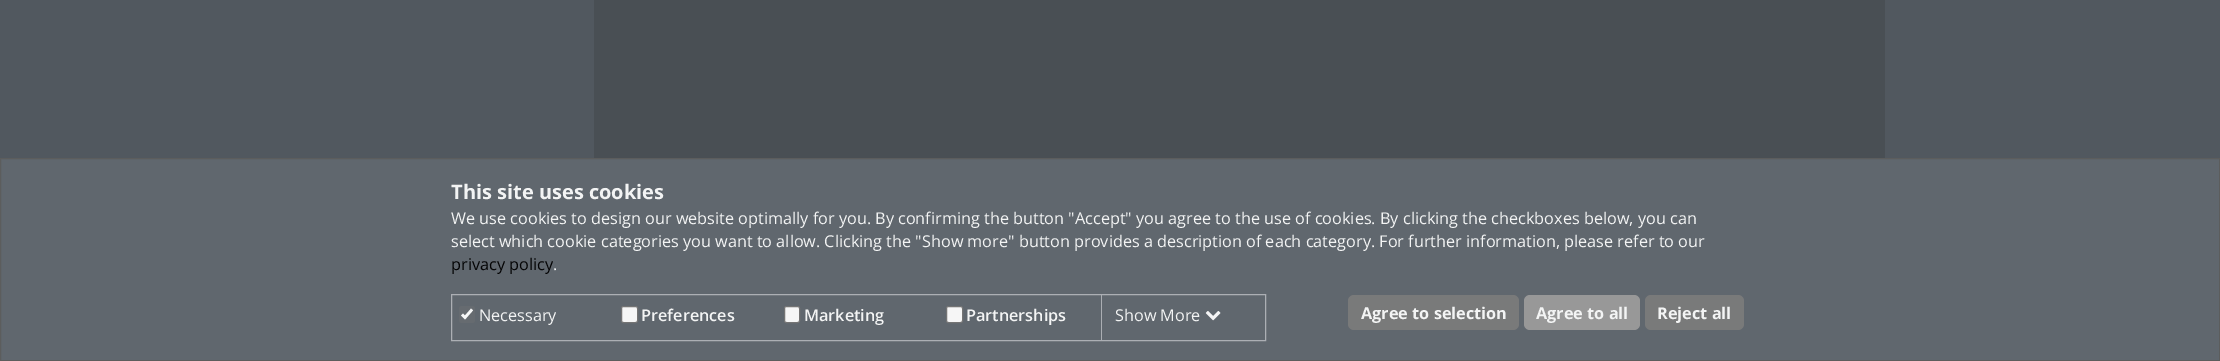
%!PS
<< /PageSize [2220 361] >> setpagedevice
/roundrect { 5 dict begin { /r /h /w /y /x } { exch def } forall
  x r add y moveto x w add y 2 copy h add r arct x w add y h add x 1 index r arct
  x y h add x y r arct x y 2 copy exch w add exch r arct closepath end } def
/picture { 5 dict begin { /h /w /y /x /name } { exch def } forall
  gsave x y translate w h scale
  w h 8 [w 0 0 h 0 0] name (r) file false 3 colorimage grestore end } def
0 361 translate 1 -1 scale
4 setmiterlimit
0.318 0.345 0.373 setrgbcolor
0 0 2220 361 rectfill
0.286 0.31 0.329 setrgbcolor
594 0 1291 158 rectfill
0.376 0.404 0.431 setrgbcolor
newpath 0.5 158.5 moveto 2219.5 158.5 lineto 2219.5 360.5 lineto 0.5 360.5 lineto closepath gsave fill grestore
0.361 0.365 0.365 setrgbcolor
stroke
/OpenSans-Bold [20 0 0 -20 0 0] selectfont
0.953 0.957 0.957 setrgbcolor
451 199 moveto (This site uses cookies) show
/OpenSans-Regular [16.25 0 0 -16.25 0 0] selectfont
451 224 moveto (We use cookies to design our website optimally for you. By confirming the button "Accept" you agree to the use of cookies. By clicking the checkboxes below, you can) show
451 247 moveto (select which cookie categories you want to allow. Clicking the "Show more" button provides a description of each category. For further information, please refer to our) show
0.016 0.016 0.02 setrgbcolor
451 270 moveto (privacy policy) show
0.953 0.957 0.957 setrgbcolor
553 270 moveto (.) show
0.675 0.686 0.706 setrgbcolor
451.5 294.5 814 46 rectstroke
0.4 0.42 0.439 setrgbcolor
459 306 16 17 2.5 roundrect fill
0.965 0.969 0.969 setrgbcolor
2.6 setlinewidth
newpath 462 314.5 moveto 465 317.5 lineto 472 309.5 lineto stroke
0.953 0.957 0.957 setrgbcolor
479 321 moveto (Necessary) show
0.965 setgray
621.5 306.5 16 16 2 roundrect gsave fill grestore
0.455 setgray
1 setlinewidth
stroke
/OpenSans-SemiBold [16.25 0 0 -16.25 0 0] selectfont
0.953 0.957 0.957 setrgbcolor
641 321 moveto (Preferences) show
0.965 setgray
784.5 306.5 15 16 2 roundrect gsave fill grestore
0.455 setgray
stroke
0.953 0.957 0.957 setrgbcolor
804 321 moveto (Marketing) show
0.671 0.682 0.702 setrgbcolor
1101 295 1 45 rectfill
0.965 setgray
946.5 306.5 16 16 2 roundrect gsave fill grestore
0.455 setgray
stroke
0.953 0.957 0.957 setrgbcolor
966 321 moveto (Partnerships) show
/OpenSans-Regular [16.25 0 0 -16.25 0 0] selectfont
1115 321 moveto (Show More) show
(img1.rgb) 1205 311 16 10 picture
0.475 0.478 0.478 setrgbcolor
1348 295 171 35 6 roundrect fill
/OpenSans-Bold [16.25 0 0 -16.25 0 0] selectfont
0.953 0.957 0.957 setrgbcolor
1361 319 moveto (Agree to selection) show
0.596 setgray
1524 295 116 35 6 roundrect fill
0.953 0.957 0.957 setrgbcolor
1536 319 moveto (Agree to all) show
0.475 0.478 0.478 setrgbcolor
1645 295 99 35 6 roundrect fill
0.953 0.957 0.957 setrgbcolor
1657 319 moveto (Reject all) show
showpage
